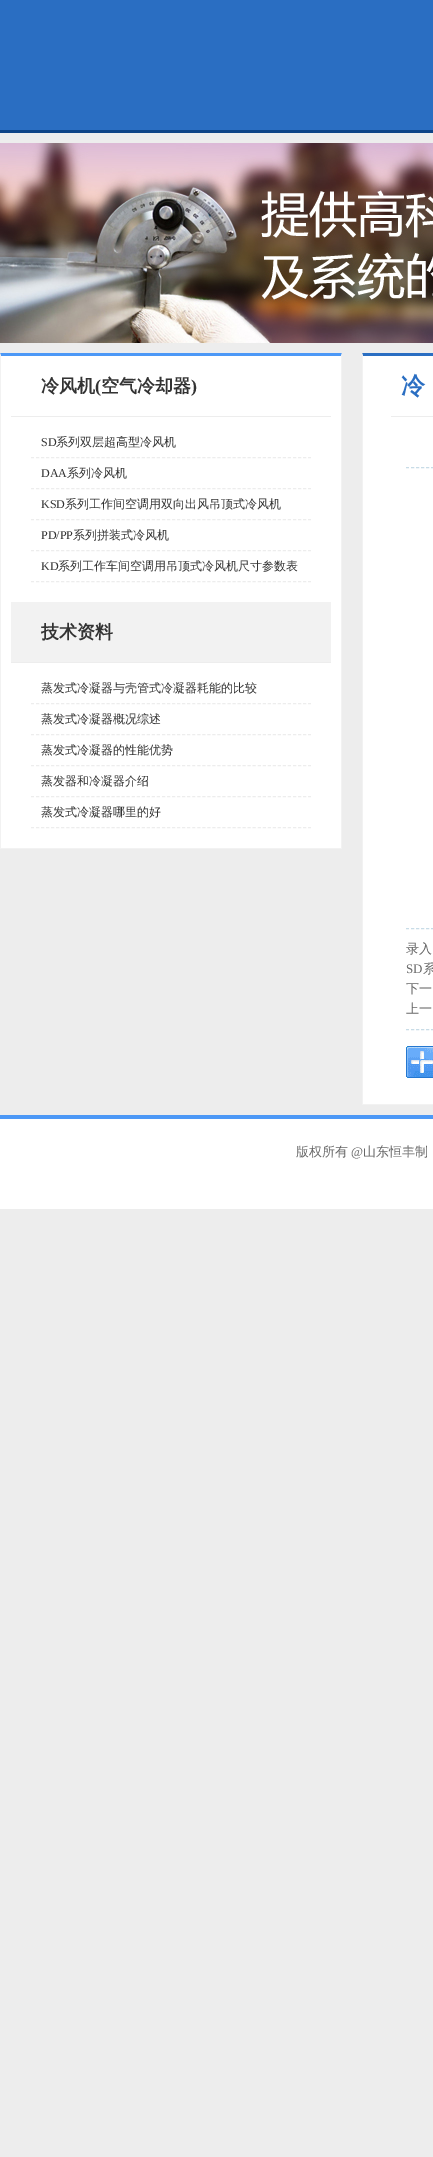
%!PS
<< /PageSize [433 2157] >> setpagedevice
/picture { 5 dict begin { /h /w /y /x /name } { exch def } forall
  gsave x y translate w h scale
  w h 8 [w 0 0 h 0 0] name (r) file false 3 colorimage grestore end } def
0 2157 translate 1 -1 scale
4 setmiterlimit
0.929 setgray
0 0 433 2157 rectfill
0.165 0.431 0.761 setrgbcolor
0 0 433 130 rectfill
0.055 0.267 0.529 setrgbcolor
0 130 433 3 rectfill
(img1.rgb) 0 143 433 200 picture
1 setgray
1 356 340 492 rectfill
0.298 0.596 0.965 setrgbcolor
newpath 0 353 moveto 342 353 lineto 341 356 lineto 1 356 lineto closepath fill
0.949 setgray
newpath 342 353 moveto 342 849 lineto 341 848 lineto 341 356 lineto closepath fill
0 848 342 1 rectfill
newpath 0 849 moveto 0 353 lineto 1 356 lineto 1 848 lineto closepath fill
0.929 setgray
11 416 320 1 rectfill
/WenQuanYiZenHei-Bold [18 0 0 -18 0 0] selectfont
0.2 setgray
41 392 moveto (冷风机) show
/LiberationSerif-Bold [18 0 0 -18 0 0] selectfont
95 392 moveto (\() show
/WenQuanYiZenHei-Bold [18 0 0 -18 0 0] selectfont
101 392 moveto (空气冷却器) show
/LiberationSerif-Bold [18 0 0 -18 0 0] selectfont
191 392 moveto (\)) show
0.929 setgray
[3 2.04] 0 setdash
newpath 31 457.5 moveto 311 457.5 lineto stroke
/LiberationSerif-Regular [12 0 0 -12 0 0] selectfont
0.2 setgray
41 446 moveto (SD) show
/WenQuanYiZenHei-Medium [12 0 0 -12 0 0] selectfont
56 446 moveto (系列双层超高型冷风机) show
0.929 setgray
newpath 31 488.5 moveto 311 488.5 lineto stroke
/LiberationSerif-Regular [12 0 0 -12 0 0] selectfont
0.2 setgray
41 477 moveto (DAA) show
/WenQuanYiZenHei-Medium [12 0 0 -12 0 0] selectfont
67 477 moveto (系列冷风机) show
0.929 setgray
newpath 31 519.5 moveto 311 519.5 lineto stroke
/LiberationSerif-Regular [12 0 0 -12 0 0] selectfont
0.2 setgray
41 508 moveto (KSD) show
/WenQuanYiZenHei-Medium [12 0 0 -12 0 0] selectfont
65 508 moveto (系列工作间空调用双向出风吊顶式冷风机) show
0.929 setgray
newpath 31 550.5 moveto 311 550.5 lineto stroke
/LiberationSerif-Regular [12 0 0 -12 0 0] selectfont
0.2 setgray
41 539 moveto (PD/PP) show
/WenQuanYiZenHei-Medium [12 0 0 -12 0 0] selectfont
73 539 moveto (系列拼装式冷风机) show
0.929 setgray
newpath 31 581.5 moveto 311 581.5 lineto stroke
/LiberationSerif-Regular [12 0 0 -12 0 0] selectfont
0.2 setgray
41 570 moveto (KD) show
/WenQuanYiZenHei-Medium [12 0 0 -12 0 0] selectfont
58 570 moveto (系列工作车间空调用吊顶式冷风机尺寸参数表) show
0.949 setgray
11 602 320 60 rectfill
0.929 setgray
11 662 320 1 rectfill
/WenQuanYiZenHei-Bold [18 0 0 -18 0 0] selectfont
0.2 setgray
41 638 moveto (技术资料) show
0.929 setgray
newpath 31 703.5 moveto 311 703.5 lineto stroke
/WenQuanYiZenHei-Medium [12 0 0 -12 0 0] selectfont
0.2 setgray
41 692 moveto (蒸发式冷凝器与壳管式冷凝器耗能的比较) show
0.929 setgray
newpath 31 734.5 moveto 311 734.5 lineto stroke
0.2 setgray
41 723 moveto (蒸发式冷凝器概况综述) show
0.929 setgray
newpath 31 765.5 moveto 311 765.5 lineto stroke
0.2 setgray
41 754 moveto (蒸发式冷凝器的性能优势) show
0.929 setgray
newpath 31 796.5 moveto 311 796.5 lineto stroke
0.2 setgray
41 785 moveto (蒸发器和冷凝器介绍) show
0.929 setgray
newpath 31 827.5 moveto 311 827.5 lineto stroke
0.2 setgray
41 816 moveto (蒸发式冷凝器哪里的好) show
1 setgray
363 356 70 748 rectfill
0.165 0.431 0.761 setrgbcolor
newpath 362 353 moveto 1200 353 lineto 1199 356 lineto 363 356 lineto closepath fill
0.949 setgray
362 1104 71 1 rectfill
newpath 362 1105 moveto 362 353 lineto 363 356 lineto 363 1104 lineto closepath fill
0.929 setgray
391 416 42 1 rectfill
/WenQuanYiZenHei-Bold [24 0 0 -24 0 0] selectfont
0.165 0.431 0.761 setrgbcolor
401 394 moveto (冷) show
0.784 0.863 0.906 setrgbcolor
[3 2.01] 0 setdash
newpath 406 467.5 moveto 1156 467.5 lineto stroke
newpath 406 928.5 moveto 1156 928.5 lineto stroke
newpath 406 1029.5 moveto 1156 1029.5 lineto stroke
/WenQuanYiZenHei-Medium [13 0 0 -13 0 0] selectfont
0.4 setgray
406 953 moveto (录入) show
/LiberationSerif-Regular [13 0 0 -13 0 0] selectfont
406 973 moveto (SD) show
/WenQuanYiZenHei-Medium [13 0 0 -13 0 0] selectfont
423 973 moveto (系) show
406 993 moveto (下一) show
406 1013 moveto (上一) show
(img2.rgb) 406 1046 27 32 picture
1 setgray
0 1119 433 90 rectfill
0.298 0.596 0.965 setrgbcolor
0 1115 433 4 rectfill
0.4 setgray
296 1156 moveto (版权所有) show
/LiberationSerif-Regular [13 0 0 -13 0 0] selectfont
351 1156 moveto (@) show
/WenQuanYiZenHei-Medium [13 0 0 -13 0 0] selectfont
363 1156 moveto (山东恒丰制) show
showpage
